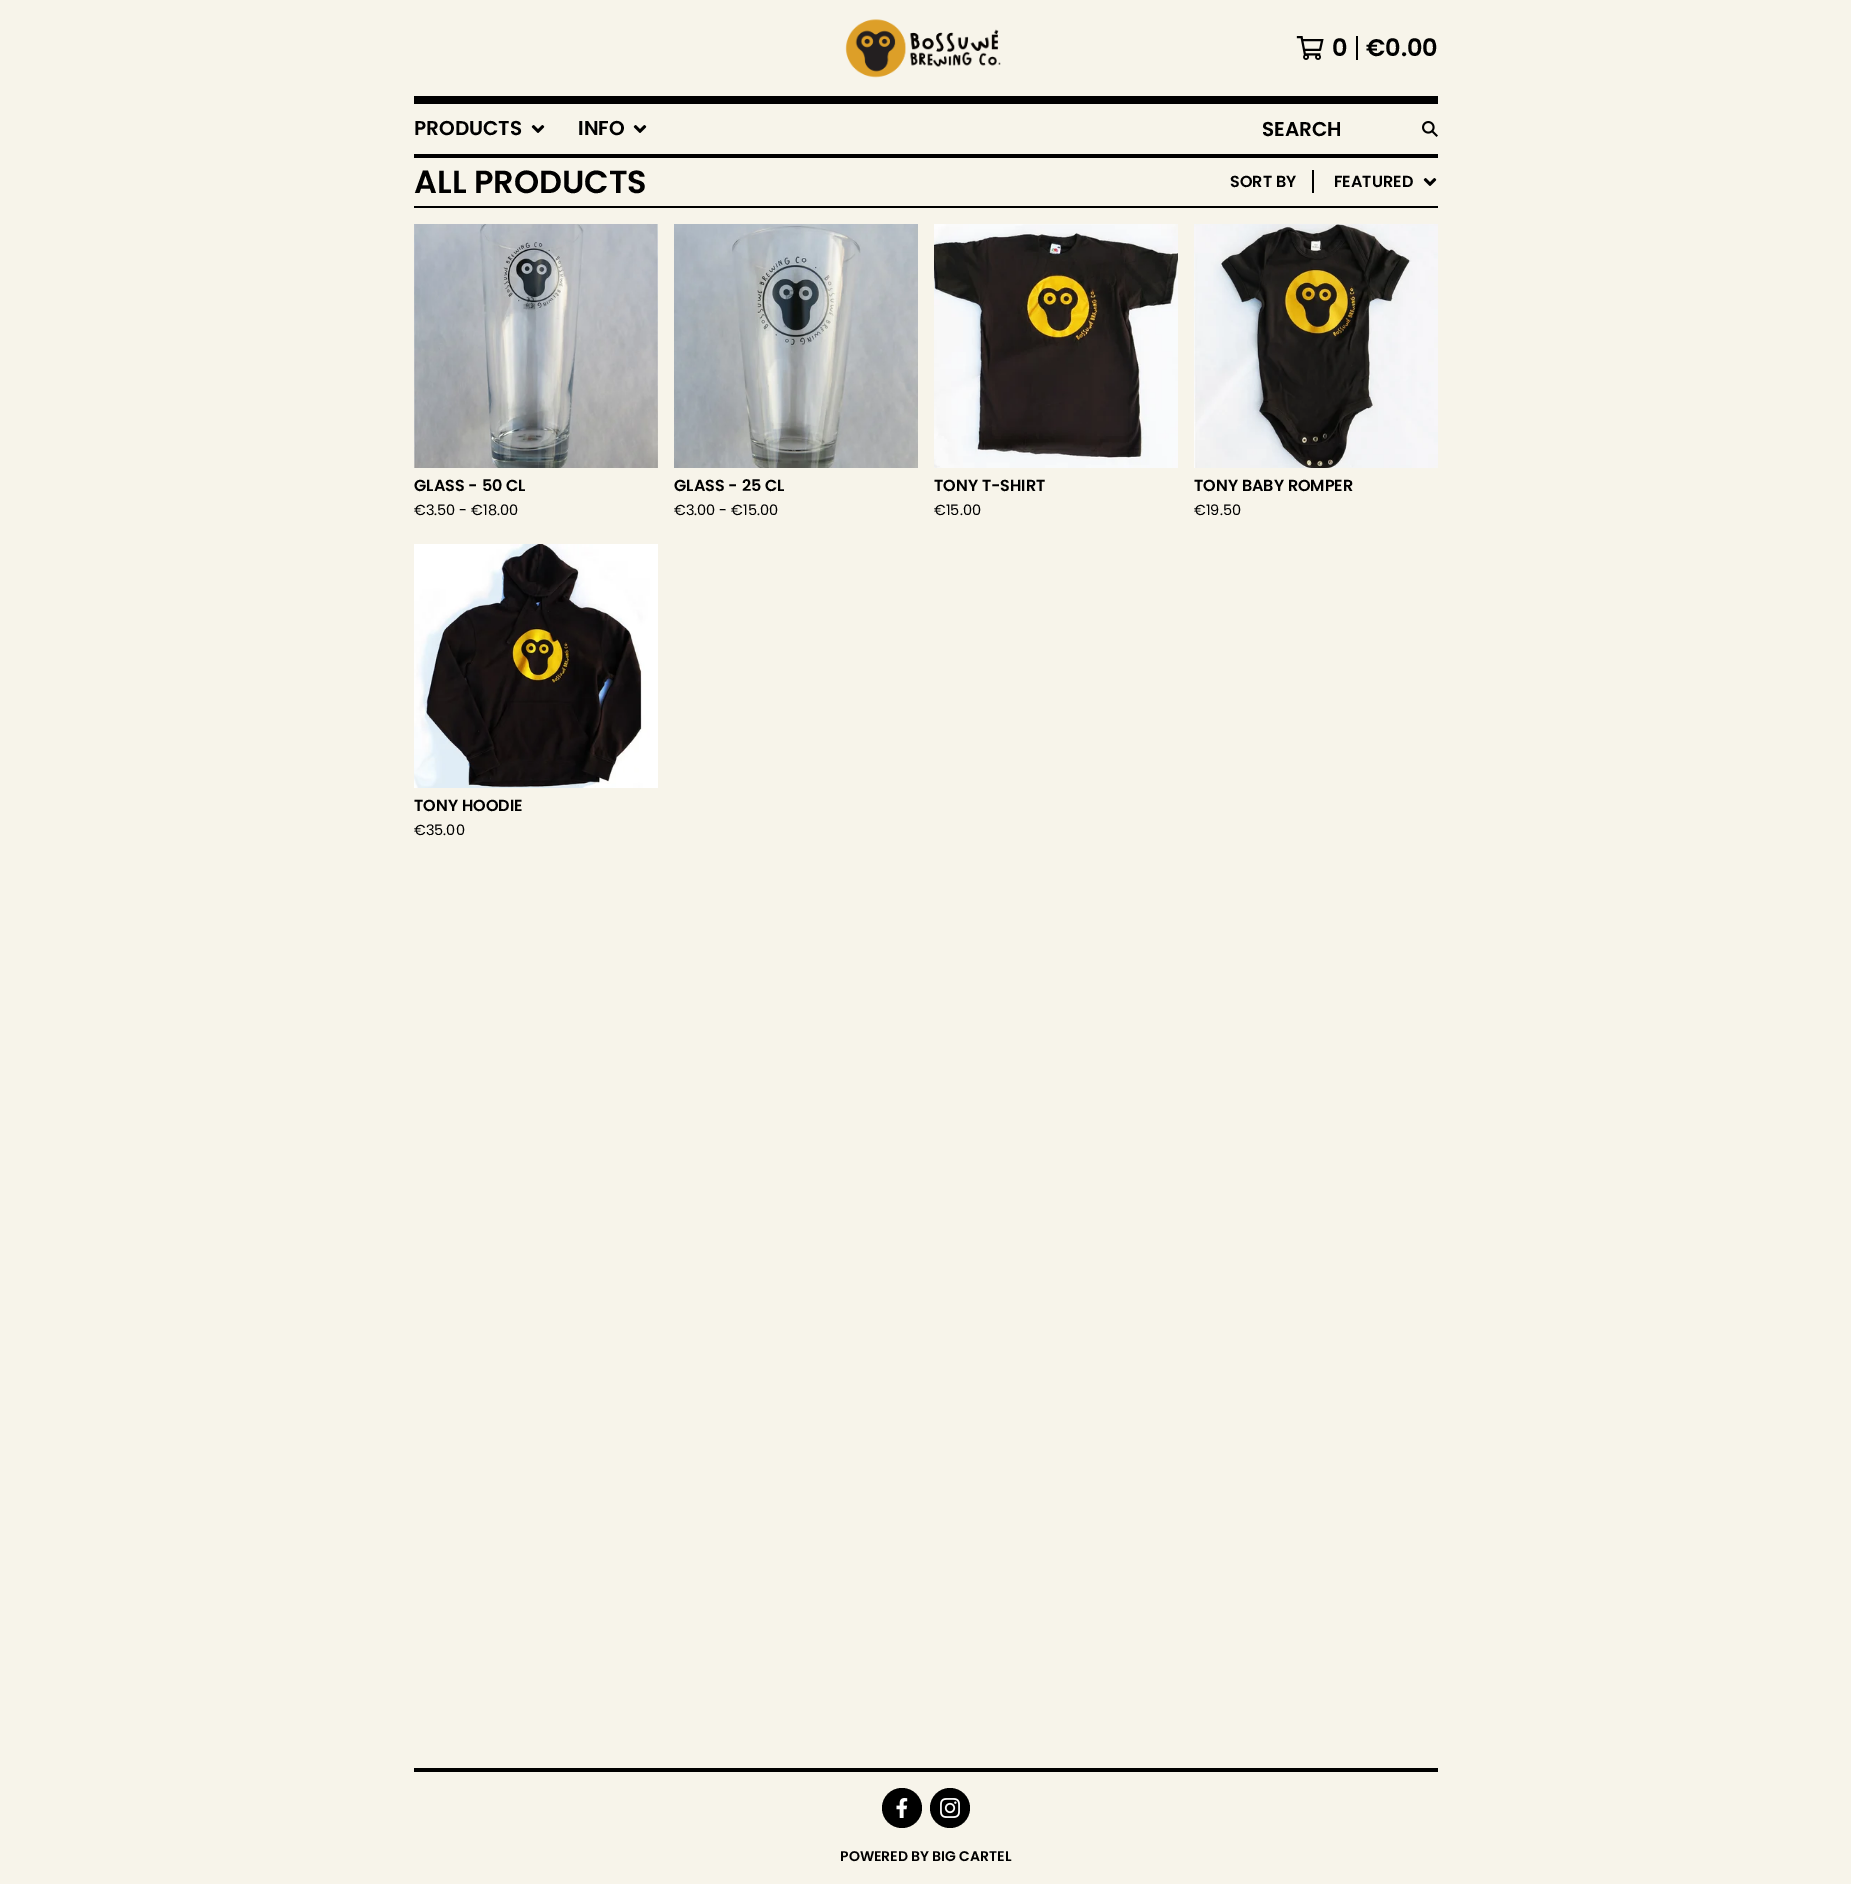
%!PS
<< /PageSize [1851 1884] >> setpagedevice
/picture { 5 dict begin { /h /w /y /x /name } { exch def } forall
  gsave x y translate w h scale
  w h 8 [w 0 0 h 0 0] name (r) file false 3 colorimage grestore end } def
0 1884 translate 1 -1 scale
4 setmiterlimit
0.969 0.957 0.918 setrgbcolor
0 0 1851 1884 rectfill
0 setgray
414 96 1024 8 rectfill
(img1.rgb) 845 19 156 59 picture
(img2.rgb) 1296 36 28 24 picture
1356 36 2 24 rectfill
/Poppins-SemiBold [24 0 0 -24 0 0] selectfont
1332 56 moveto (0) show
1366 56 moveto (€0.00) show
414 154 1024 4 rectfill
/Poppins-SemiBold [20 0 0 -20 0 0] selectfont
414 135 moveto (PRODUCTS) show
(img3.rgb) 531 125 14 8 picture
578 135 moveto (INFO) show
(img3.rgb) 633 125 14 8 picture
1262 136 moveto (SEARCH) show
(img4.rgb) 1422 121 16 16 picture
414 206 1024 2 rectfill
/Poppins-SemiBold [32 0 0 -32 0 0] selectfont
414 193 moveto (ALL PRODUCTS) show
/Poppins-SemiBold [16 0 0 -16 0 0] selectfont
1230 187 moveto (SORT BY) show
1312 170 2 23 rectfill
1334 187 moveto (FEATURED) show
(img3.rgb) 1423 178 14 8 picture
(img5.rgb) 414 224 244 244 picture
414 491 moveto (GLASS - 50 CL) show
/Poppins-Regular [14.5 0 0 -14.5 0 0] selectfont
414 515 moveto (€3.50 - €18.00) show
(img6.rgb) 674 224 244 244 picture
/Poppins-SemiBold [16 0 0 -16 0 0] selectfont
674 491 moveto (GLASS - 25 CL) show
/Poppins-Regular [14.5 0 0 -14.5 0 0] selectfont
674 515 moveto (€3.00 - €15.00) show
(img7.rgb) 934 224 244 244 picture
/Poppins-SemiBold [16 0 0 -16 0 0] selectfont
934 491 moveto (TONY T-SHIRT) show
/Poppins-Regular [14.5 0 0 -14.5 0 0] selectfont
934 515 moveto (€15.00) show
(img8.rgb) 1194 224 244 244 picture
/Poppins-SemiBold [16 0 0 -16 0 0] selectfont
1194 491 moveto (TONY BABY ROMPER) show
/Poppins-Regular [14.5 0 0 -14.5 0 0] selectfont
1194 515 moveto (€19.50) show
(img9.rgb) 414 544 244 244 picture
/Poppins-SemiBold [16 0 0 -16 0 0] selectfont
414 811 moveto (TONY HOODIE) show
/Poppins-Regular [14.5 0 0 -14.5 0 0] selectfont
414 835 moveto (€35.00) show
414 1768 1024 4 rectfill
newpath 902 1808 20 0 360 arc closepath fill
(img10.rgb) 896 1798 12 20 picture
newpath 950 1808 20 0 360 arc closepath fill
(img11.rgb) 940 1798 20 20 picture
/Poppins-SemiBold [14 0 0 -14 0 0] selectfont
840 1861 moveto (POWERED BY BIG CARTEL) show
showpage
